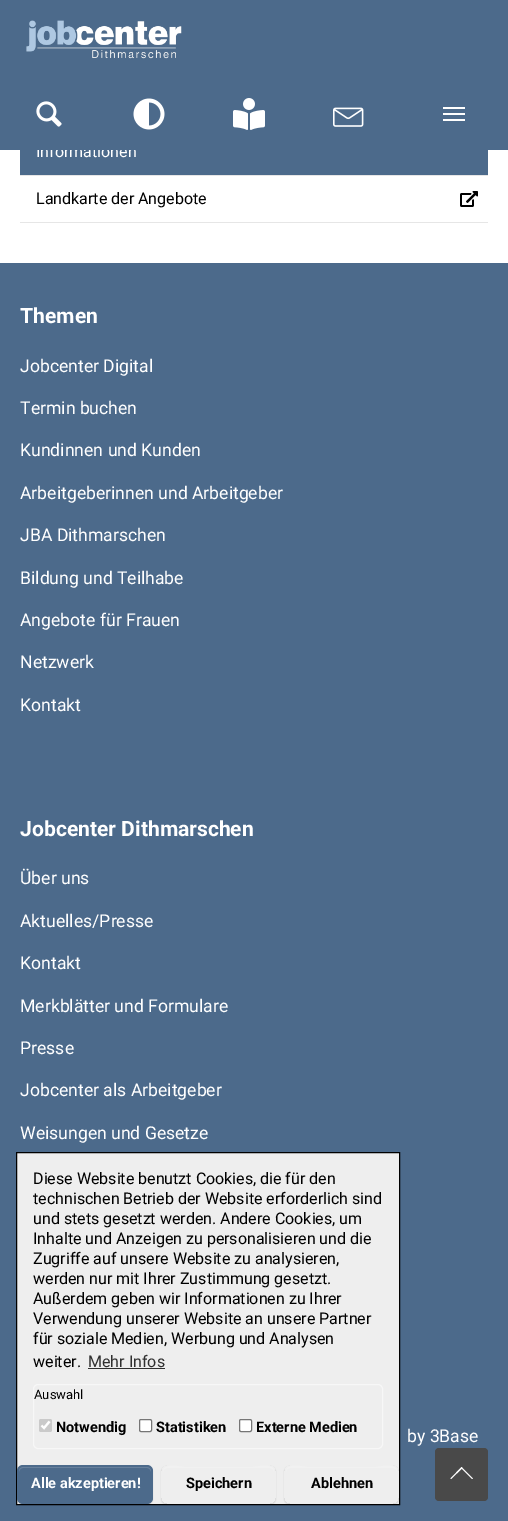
%!PS
<< /PageSize [508 1521] /PageUsesTransparency true >> setpagedevice
/alpha { dup .setfillconstantalpha .setstrokeconstantalpha } def
/roundrect { 5 dict begin { /r /h /w /y /x } { exch def } forall
  x r add y moveto x w add y 2 copy h add r arct x w add y h add x 1 index r arct
  x y h add x y r arct x y 2 copy exch w add exch r arct closepath end } def
/shadow { 12 dict begin { /a /b /q /h /w /y /x } { exch def } forall gsave /was 0 def
  9 -2 -9 { dup b mul 4 div /e exch def 1 sub .425 mul 2.718 exch exp 1 add a .99 .min exch div /now exch def
    1 1 now sub 1 was sub div sub alpha /was now def
    w h .min e 2 mul add 0 gt { x e sub y e sub w e 2 mul add h e 2 mul add
      q e add b .6 mul add w h .min 2 div e add .min 0 .max roundrect fill } if } for grestore end } def
/picture { 5 dict begin { /h /w /y /x /name } { exch def } forall
  gsave x y translate w h scale
  w h 8 [w 0 0 h 0 0] name (r) file false 3 colorimage grestore end } def
0 .pushpdf14devicefilter
0 1521 translate 1 -1 scale
4 setmiterlimit
0.298 0.416 0.545 setrgbcolor
0 0 508 1521 rectfill
1 setgray
0 150 508 113 rectfill
0.298 0.416 0.545 setrgbcolor
20 150 468 25 rectfill
/Roboto-Regular [16 0 0 -16 0 0] selectfont
1 setgray
36 157 moveto (Informationen) show
0.298 0.416 0.545 setrgbcolor
37 144 99 6 rectfill
(img1.rgb) 26 20 156 39 picture
(img2.rgb) 36 101 26 26 picture
(img3.rgb) 133 98 32 32 picture
(img4.rgb) 233 98 32 32 picture
(img5.rgb) 333 107 31 20 picture
1 setgray
443 113 22 2 rectfill
443 107 22 2 rectfill
443 119 22 2 rectfill
0.902 setgray
20 175 468 1 rectfill
20 222 468 1 rectfill
0 setgray
36 204 moveto (Landkarte der Angebote) show
(img6.rgb) 460 191 18 16 picture
/Roboto-Bold [21.1 0 0 -21.1 0 0] selectfont
1 setgray
20 323 moveto (Themen) show
/Roboto-Regular [17.6 0 0 -17.6 0 0] selectfont
20 372 moveto (Jobcenter Digital) show
20 414 moveto (Termin buchen) show
20 456 moveto (Kundinnen und Kunden) show
20 499 moveto (Arbeitgeberinnen und Arbeitgeber) show
20 541 moveto (JBA Dithmarschen) show
20 584 moveto (Bildung und Teilhabe) show
20 626 moveto (Angebote für Frauen) show
20 668 moveto (Netzwerk) show
20 711 moveto (Kontakt) show
/Roboto-Bold [21.1 0 0 -21.1 0 0] selectfont
20 836 moveto (Jobcenter Dithmarschen) show
/Roboto-Regular [17.6 0 0 -17.6 0 0] selectfont
20 884 moveto (Über uns) show
20 927 moveto (Aktuelles/Presse) show
20 969 moveto (Kontakt) show
20 1012 moveto (Merkblätter und Formulare) show
20 1054 moveto (Presse) show
20 1096 moveto (Jobcenter als Arbeitgeber) show
20 1139 moveto (Weisungen und Gesetze) show
407 1442 moveto (by 3Base) show
0.286 setgray
435 1448 53 53 4 roundrect fill
1 setgray
newpath 461.5 1467 moveto 473 1478.5 lineto 472 1479 lineto 461 1468 lineto closepath fill
newpath 461.5 1467 moveto 462.5 1468 lineto 451 1479 lineto 450.5 1478.5 lineto closepath fill
0.933 setgray
newpath 16.5 1152.5 moveto 399.5 1152.5 lineto 399.5 1504.5 lineto 16.5 1504.5 lineto closepath gsave fill grestore
0 setgray
stroke
/Roboto-Regular [16 0 0 -16 0 0] selectfont
33 1184 moveto (Diese Website benutzt Cookies, die für den) show
33 1204 moveto (technischen Betrieb der Website erforderlich sind) show
33 1224 moveto (und stets gesetzt werden. Andere Cookies, um) show
33 1244 moveto (Inhalte und Anzeigen zu personalisieren und die) show
33 1264 moveto (Zugriffe auf unsere Website zu analysieren,) show
33 1284 moveto (werden nur mit Ihrer Zustimmung gesetzt.) show
33 1304 moveto (Außerdem geben wir Informationen zu Ihrer) show
33 1324 moveto (Verwendung unserer Website an unsere Partner) show
33 1344 moveto (für soziale Medien, Werbung und Analysen) show
33 1367 moveto (weiter.) show
0.188 setgray
88 1367 moveto (Mehr Infos) show
88 1368 77 1 rectfill
0.969 setgray
33.5 1384.5 349 64 4.5 roundrect stroke
/Roboto-Regular [13 0 0 -13 0 0] selectfont
0 setgray
34 1399 moveto (Auswahl) show
0.792 setgray
39 1419 13 13 2 roundrect fill
1 setgray
2.1 setlinewidth
newpath 41.5 1425.5 moveto 44 1428 lineto 49.5 1421.5 lineto stroke
/Roboto-Bold [14.5 0 0 -14.5 0 0] selectfont
0 setgray
56 1432 moveto (Notwendig) show
1 setgray
139.5 1419.5 12 12 1.5 roundrect gsave fill grestore
0.463 setgray
1 setlinewidth
stroke
0 setgray
156 1432 moveto (Statistiken) show
1 setgray
239.5 1419.5 12 12 1.5 roundrect gsave fill grestore
0.463 setgray
stroke
0 setgray
256 1432 moveto (Externe Medien) show
17 1466 136 39 6 0.5 0.07 shadow
0.298 0.416 0.545 setrgbcolor
17 1465 136 39 6 roundrect fill
0.404 0.502 0.612 setrgbcolor
newpath 23 1468 moveto 147 1468 lineto 149 1468 151 1470 151 1472 curveto 151 1471 lineto 151 1469 149 1467 147 1467 curveto 23 1467 lineto 21 1467 19 1469 19 1471 curveto 19 1472 lineto 19 1470 21 1468 23 1468 curveto closepath fill
1 setgray
31 1488 moveto (Alle akzeptieren!) show
gsave
newpath 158 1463 moveto 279 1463 lineto 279 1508 lineto 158 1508 lineto closepath 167 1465 moveto 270 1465 lineto 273.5 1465 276 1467.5 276 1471 curveto 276 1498 lineto 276 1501.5 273.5 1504 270 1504 curveto 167 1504 lineto 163.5 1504 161 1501.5 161 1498 curveto 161 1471 lineto 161 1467.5 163.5 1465 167 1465 curveto closepath eoclip newpath
0 setgray
161 1466 115 39 6 0.5 0.07 shadow
grestore
0.945 setgray
newpath 167 1468 moveto 270 1468 lineto 272 1468 274 1470 274 1472 curveto 274 1462 256 1467 253 1467 curveto 184 1467 lineto 181 1467 163 1462 163 1472 curveto 163 1470 165 1468 167 1468 curveto closepath fill
0 setgray
186 1488 moveto (Speichern) show
gsave
newpath 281 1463 moveto 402 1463 lineto 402 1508 lineto 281 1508 lineto closepath 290 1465 moveto 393 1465 lineto 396.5 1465 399 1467.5 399 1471 curveto 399 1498 lineto 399 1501.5 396.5 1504 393 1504 curveto 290 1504 lineto 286.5 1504 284 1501.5 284 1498 curveto 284 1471 lineto 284 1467.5 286.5 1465 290 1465 curveto closepath eoclip newpath
284 1466 115 39 6 0.5 0.07 shadow
grestore
0.945 setgray
newpath 290 1468 moveto 393 1468 lineto 395 1468 397 1470 397 1472 curveto 397 1462 379 1467 376 1467 curveto 307 1467 lineto 304 1467 286 1462 286 1472 curveto 286 1470 288 1468 290 1468 curveto closepath fill
0 setgray
311 1488 moveto (Ablehnen) show
.poppdf14devicefilter showpage
